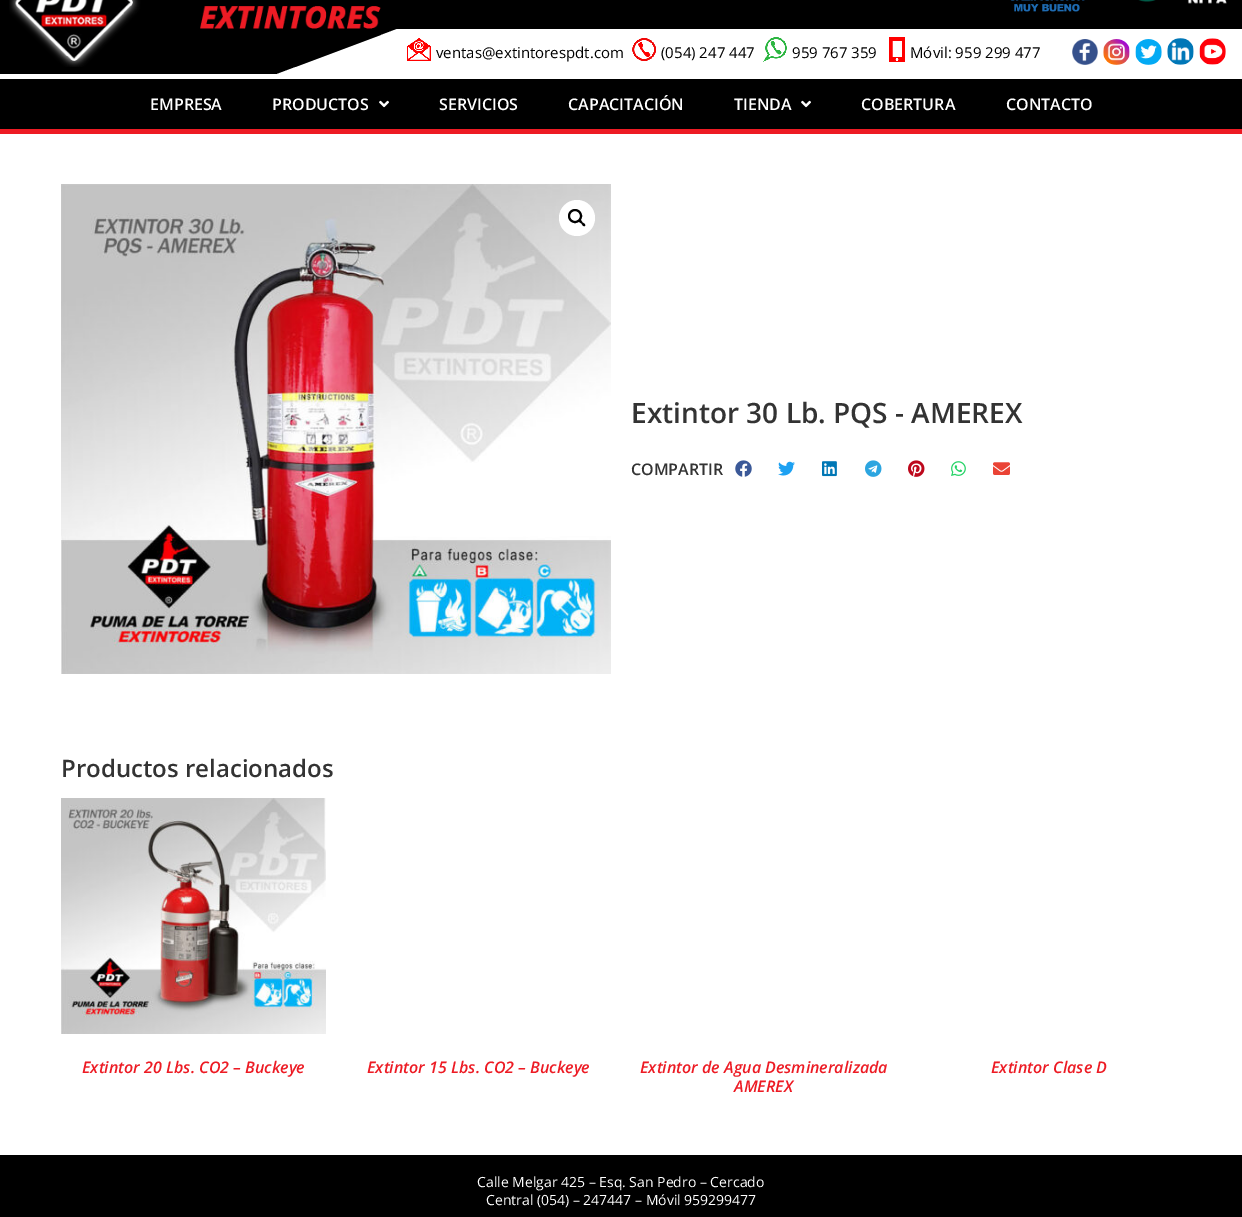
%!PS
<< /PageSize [1242 1217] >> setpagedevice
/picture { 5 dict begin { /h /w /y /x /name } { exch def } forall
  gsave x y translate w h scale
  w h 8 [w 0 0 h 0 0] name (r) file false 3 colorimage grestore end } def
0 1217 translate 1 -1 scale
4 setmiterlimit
1 setgray
0 0 1242 1217 rectfill
0 setgray
0 0 397 74 rectfill
1 setgray
newpath 397 29 moveto 397 74 lineto 277 74 lineto closepath fill
(img1.rgb) 9 0 372 67 picture
0 setgray
397 0 845 29 rectfill
(img2.rgb) 1010 0 75 12 picture
(img3.rgb) 1138 0 18 2 picture
(img4.rgb) 1187 0 40 4 picture
(img5.rgb) 407 38 24 23 picture
/OpenSans-Regular [15 0 0 -15 0 0] selectfont
436 58 moveto (ventas@extintorespdt.com) show
(img6.rgb) 632 38 24 23 picture
661 58 moveto (\(054\) 247 447) show
(img7.rgb) 763 37 24 25 picture
792 58 moveto (959 767 359) show
(img8.rgb) 889 37 16 25 picture
910 58 moveto (Móvil: 959 299 477) show
(img9.rgb) 1072 39 26 26 picture
(img10.rgb) 1103 39 27 26 picture
(img11.rgb) 1135 39 27 26 picture
(img12.rgb) 1167 38 27 27 picture
(img13.rgb) 1199 38 27 27 picture
0 79 1242 50 rectfill
0.929 0.106 0.141 setrgbcolor
0 129 1242 5 rectfill
/OpenSans-SemiBold [16 0 0 -16 0 0] selectfont
1 setgray
150 110 moveto (EMPRESA) show
272 110 moveto (PRODUCTOS) show
(img14.rgb) 379 100 10 8 picture
439 110 moveto (SERVICIOS) show
568 110 moveto (CAPACITACIÓN) show
734 110 moveto (TIENDA) show
(img14.rgb) 801 100 10 8 picture
861 110 moveto (COBERTURA) show
1006 110 moveto (CONTACTO) show
(img15.rgb) 61 184 550 490 picture
newpath 577 218 18 0 360 arc closepath fill
0 setgray
2 setlinewidth
newpath 575 216 6 0 360 arc closepath stroke
newpath 579 220 moveto 580.5 219 582 221.5 582.5 222.5 curveto 583.5 223 586 224.5 585 226 curveto 583.5 227 582 224.5 581.5 223.5 curveto 580.5 223 578 221.5 579 220 curveto closepath fill
/OpenSans-SemiBold [28 0 0 -28 0 0] selectfont
0.2 setgray
631 423 moveto (Extintor 30 Lb. PQS - AMEREX) show
/OpenSans-SemiBold [16 0 0 -16 0 0] selectfont
631 475 moveto (COMPARTIR) show
(img16.rgb) 735 460 17 17 picture
(img17.rgb) 778 461 17 15 picture
(img18.rgb) 822 461 15 16 picture
(img19.rgb) 865 460 17 17 picture
(img20.rgb) 908 460 17 17 picture
(img21.rgb) 951 461 15 15 picture
(img22.rgb) 993 462 17 13 picture
/OpenSans-SemiBold [24 0 0 -24 0 0] selectfont
61 777 moveto (Productos relacionados) show
(img23.rgb) 61 798 265 236 picture
/OpenSans-SemiBoldItalic [16 0 0 -16 0 0] selectfont
0.929 0.106 0.141 setrgbcolor
82 1073 moveto (Extintor 20 Lbs. CO2 – Buckeye) show
367 1073 moveto (Extintor 15 Lbs. CO2 – Buckeye) show
640 1073 moveto (Extintor de Agua Desmineralizada) show
734 1092 moveto (AMEREX) show
991 1073 moveto (Extintor Clase D) show
0 setgray
0 1155 1242 62 rectfill
/OpenSans-Regular [14 0 0 -14 0 0] selectfont
1 setgray
477 1187 moveto (Calle Melgar 425 – Esq. San Pedro – Cercado) show
486 1205 moveto (Central \(054\) – 247447 – Móvil 959299477) show
showpage
